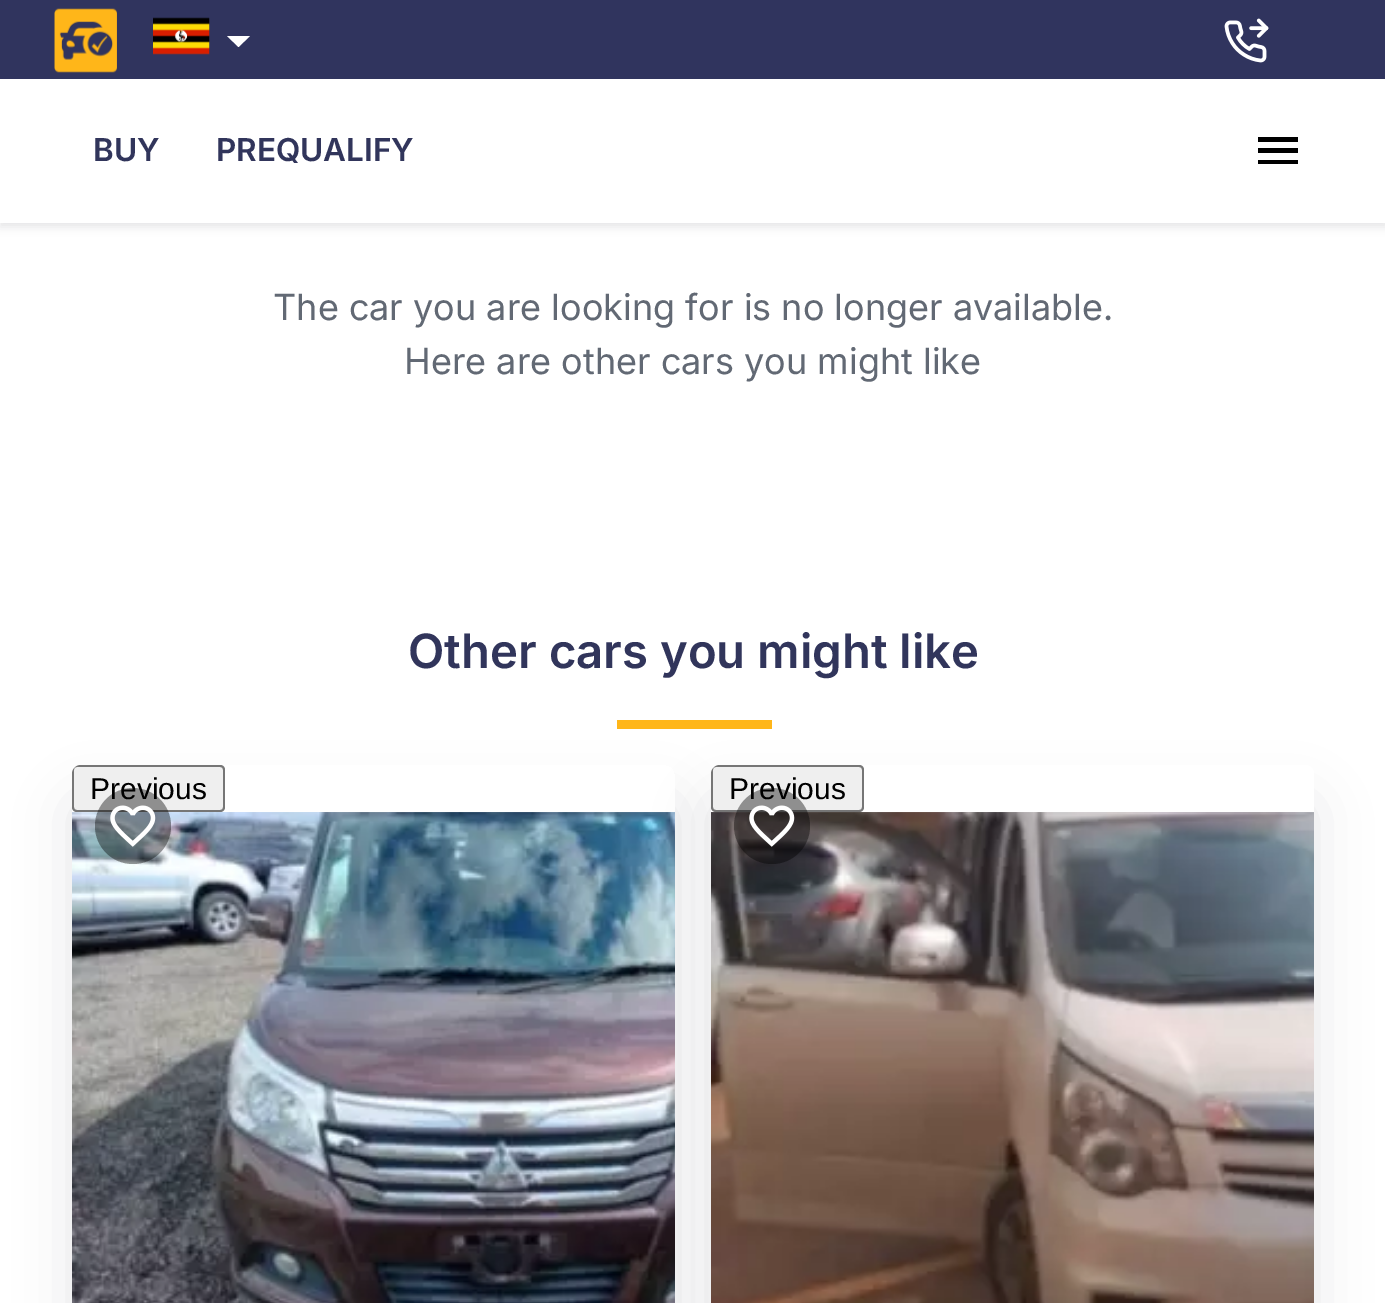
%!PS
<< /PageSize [1385 1303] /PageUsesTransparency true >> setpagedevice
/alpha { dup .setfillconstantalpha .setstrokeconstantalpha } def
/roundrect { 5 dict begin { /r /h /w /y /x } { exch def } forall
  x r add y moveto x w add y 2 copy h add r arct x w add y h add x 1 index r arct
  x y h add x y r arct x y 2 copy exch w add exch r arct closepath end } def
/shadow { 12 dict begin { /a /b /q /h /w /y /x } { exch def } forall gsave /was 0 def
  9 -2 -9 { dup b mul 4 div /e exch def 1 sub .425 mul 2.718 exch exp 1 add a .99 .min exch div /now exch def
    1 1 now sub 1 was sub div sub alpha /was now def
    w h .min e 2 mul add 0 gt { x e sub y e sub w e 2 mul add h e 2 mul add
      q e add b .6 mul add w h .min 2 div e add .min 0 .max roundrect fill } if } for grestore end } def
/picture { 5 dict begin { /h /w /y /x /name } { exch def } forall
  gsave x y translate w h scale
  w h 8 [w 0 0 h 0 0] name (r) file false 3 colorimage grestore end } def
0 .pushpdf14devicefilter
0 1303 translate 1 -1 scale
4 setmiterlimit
1 setgray
0 0 1385 1303 rectfill
0.376 0.38 0.439 setrgbcolor
0 5 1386 222 0 4.5 0.16 shadow
0.188 0.204 0.369 setrgbcolor
0 0 1385 79 rectfill
(img1.rgb) 54 8 63 65 picture
(img2.rgb) 153 17 57 38 picture
1 setgray
newpath 227 36 moveto 238.5 47 lineto 250 36 lineto closepath fill
(img3.rgb) 1224 18 45 45 picture
0 79 1385 144 rectfill
/Inter-SemiBold [31.5 0 0 -31.5 0 0] selectfont
0.192 0.208 0.357 setrgbcolor
93 161 moveto (BUY) show
216 161 moveto (PREQUALIFY) show
0 setgray
newpath 1258 164 moveto 1298 164 lineto 1298 160 lineto 1258 160 lineto closepath 1258 153 moveto 1298 153 lineto 1298 148 lineto 1258 148 lineto closepath 1258 137 moveto 1258 142 lineto 1298 142 lineto 1298 137 lineto closepath fill
/Inter-Regular [36 0 0 -36 0 0] selectfont
0.384 0.412 0.455 setrgbcolor
273 320 moveto (The car you are looking for is no longer available.) show
404 374 moveto (Here are other cars you might like) show
/Inter-SemiBold [47.25 0 0 -47.25 0 0] selectfont
0.192 0.208 0.357 setrgbcolor
408 668 moveto (Other cars you might like) show
1 0.714 0.098 setrgbcolor
617 720 155 9 rectfill
gsave
newpath 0 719 moveto 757 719 lineto 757 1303 lineto 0 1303 lineto closepath 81 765 moveto 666 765 lineto 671 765 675 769 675 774 curveto 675 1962 lineto 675 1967 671 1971 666 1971 curveto 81 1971 lineto 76 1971 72 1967 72 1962 curveto 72 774 lineto 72 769 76 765 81 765 curveto closepath eoclip newpath
0.376 0.38 0.439 setrgbcolor
72 801 603 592 9 27 0.16 shadow
grestore
0.937 setgray
newpath 81 765 moveto 220 765 lineto 223 765 225 767 225 770 curveto 225 807 lineto 225 810 223 812 220 812 curveto 77 812 lineto 74 812 72 810 72 807 curveto 72 774 lineto 72 769 76 765 81 765 curveto closepath fill
0.463 setgray
newpath 81 765 moveto 76 765 72 769 72 774 curveto 72 807 lineto 72 810 74 812 77 812 curveto 220 812 lineto 223 812 225 810 225 807 curveto 225 770 lineto 225 767 223 765 220 765 curveto closepath 77 767 moveto 75 767 74 768 74 770 curveto 74 807 lineto 74 809 75 810 77 810 curveto 220 810 lineto 222 810 223 809 223 807 curveto 223 770 lineto 223 768 222 767 220 767 curveto closepath eofill
/LiberationSans-Regular [30 0 0 -30 0 0] selectfont
0 setgray
90 799 moveto (Previous) show
(img4.rgb) 72 812 603 491 picture
(img5.rgb) 72 812 603 1 picture
0.4 alpha
newpath 133 826 38 0 360 arc closepath fill
1 alpha
(img6.rgb) 110 805 46 42 picture
0.376 0.38 0.439 setrgbcolor
711 801 603 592 9 27 0.16 shadow
1 setgray
711 765 603 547 9 roundrect fill
0.937 setgray
newpath 720 765 moveto 859 765 lineto 862 765 864 767 864 770 curveto 864 807 lineto 864 810 862 812 859 812 curveto 716 812 lineto 713 812 711 810 711 807 curveto 711 774 lineto 711 769 715 765 720 765 curveto closepath fill
0.463 setgray
newpath 720 765 moveto 715 765 711 769 711 774 curveto 711 807 lineto 711 810 713 812 716 812 curveto 859 812 lineto 862 812 864 810 864 807 curveto 864 770 lineto 864 767 862 765 859 765 curveto closepath 716 767 moveto 714 767 713 768 713 770 curveto 713 807 lineto 713 809 714 810 716 810 curveto 859 810 lineto 861 810 862 809 862 807 curveto 862 770 lineto 862 768 861 767 859 767 curveto closepath eofill
0 setgray
729 799 moveto (Previous) show
(img7.rgb) 711 812 603 491 picture
(img8.rgb) 711 812 603 1 picture
0.4 alpha
newpath 772 826 38 0 360 arc closepath fill
1 alpha
(img9.rgb) 749 805 46 42 picture
.poppdf14devicefilter showpage
